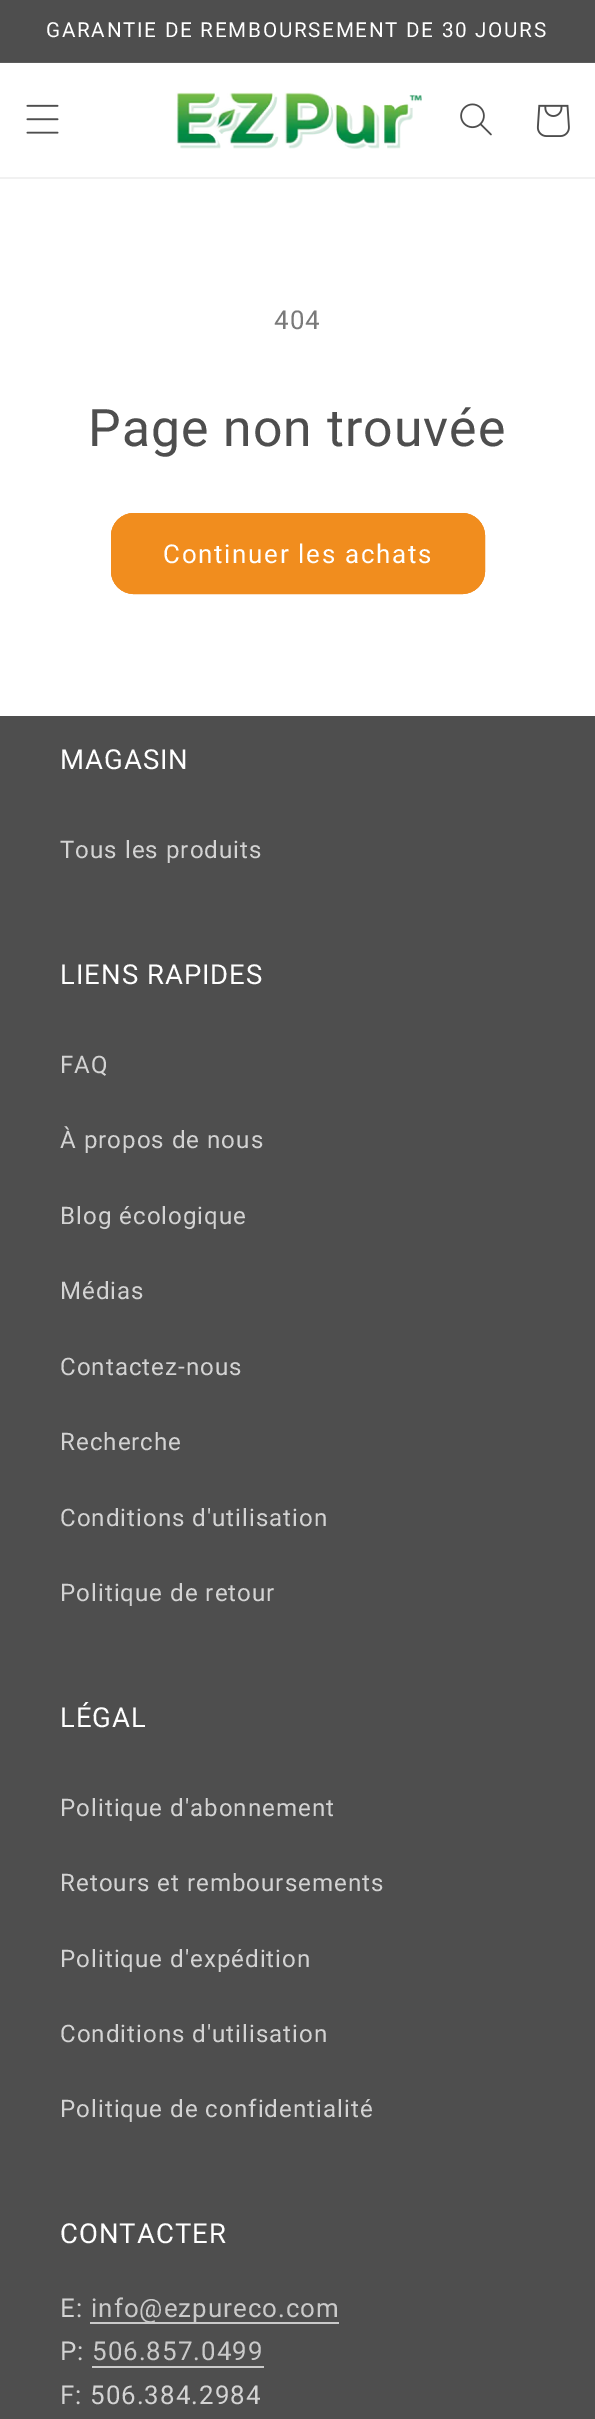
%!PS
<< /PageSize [595 2419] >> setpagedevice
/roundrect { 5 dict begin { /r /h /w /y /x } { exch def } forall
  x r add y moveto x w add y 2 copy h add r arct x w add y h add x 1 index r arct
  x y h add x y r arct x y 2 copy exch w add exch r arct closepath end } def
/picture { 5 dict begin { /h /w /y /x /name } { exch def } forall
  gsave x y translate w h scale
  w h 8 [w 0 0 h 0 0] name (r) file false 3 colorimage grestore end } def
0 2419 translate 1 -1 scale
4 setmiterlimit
1 setgray
0 0 595 2419 rectfill
0.306 setgray
0 0 595 62 rectfill
0.361 setgray
0 62 595 1 rectfill
/Roboto-Regular [20.7 0 0 -20.7 0 0] selectfont
1 setgray
46 37 moveto 1.7 0 (GARANTIE DE REMBOURSEMENT DE 30 JOURS) ashow
0.945 setgray
0 177 595 2 rectfill
(img1.rgb) 26 104 33 30 picture
(img2.rgb) 175 92 247 57 picture
(img3.rgb) 460 103 32 33 picture
(img4.rgb) 536 104 34 33 picture
/Roboto-Regular [25.9 0 0 -25.9 0 0] selectfont
0.478 setgray
274 329 moveto 1 0 (404) ashow
/Roboto-Regular [51.75 0 0 -51.75 0 0] selectfont
0.306 setgray
88 446 moveto 1 0 (Page non trouvée) ashow
0.945 0.553 0.118 setrgbcolor
111 513 374 81 23 roundrect fill
2 setlinewidth
112 514 372 79 22 roundrect stroke
/Roboto-Regular [25.9 0 0 -25.9 0 0] selectfont
1 setgray
163 563 moveto 1.7 0 (Continuer les achats) ashow
0.306 setgray
0 716 595 1703 rectfill
/Roboto-Regular [27.5 0 0 -27.5 0 0] selectfont
1 setgray
60 769 moveto 1 0 (MAGASIN) ashow
/Roboto-Regular [24.1 0 0 -24.1 0 0] selectfont
0.827 setgray
60 858 moveto 1 0 (Tous les produits) ashow
/Roboto-Regular [27.5 0 0 -27.5 0 0] selectfont
1 setgray
60 984 moveto 1 0 (LIENS RAPIDES) ashow
/Roboto-Regular [24.1 0 0 -24.1 0 0] selectfont
0.827 setgray
60 1073 moveto 1 0 (FAQ) ashow
60 1148 moveto 1 0 (À propos de nous) ashow
60 1224 moveto 1 0 (Blog écologique) ashow
60 1299 moveto 1 0 (Médias) ashow
60 1375 moveto 1 0 (Contactez-nous) ashow
60 1450 moveto 1 0 (Recherche) ashow
60 1526 moveto 1 0 (Conditions d'utilisation) ashow
60 1601 moveto 1 0 (Politique de retour) ashow
/Roboto-Regular [27.5 0 0 -27.5 0 0] selectfont
1 setgray
60 1727 moveto 1 0 (LÉGAL) ashow
/Roboto-Regular [24.1 0 0 -24.1 0 0] selectfont
0.827 setgray
60 1816 moveto 1 0 (Politique d'abonnement) ashow
60 1891 moveto 1 0 (Retours et remboursements) ashow
60 1967 moveto 1 0 (Politique d'expédition) ashow
60 2042 moveto 1 0 (Conditions d'utilisation) ashow
60 2117 moveto 1 0 (Politique de confidentialité) ashow
/Roboto-Regular [27.5 0 0 -27.5 0 0] selectfont
1 setgray
60 2243 moveto 1 0 (CONTACTER) ashow
/Roboto-Regular [25.9 0 0 -25.9 0 0] selectfont
0.827 setgray
60 2317 moveto 1 0 (E:) ashow
0.792 setgray
90 2322 249 2 rectfill
91 2317 moveto 1 0 (info@ezpureco.com) ashow
0.827 setgray
60 2360 moveto 1 0 (P:) ashow
0.792 setgray
92 2360 moveto 1 0 (506.857.0499) ashow
92 2366 172 2 rectfill
0.827 setgray
60 2404 moveto 1 0 (F: 506.384.2984) ashow
showpage
